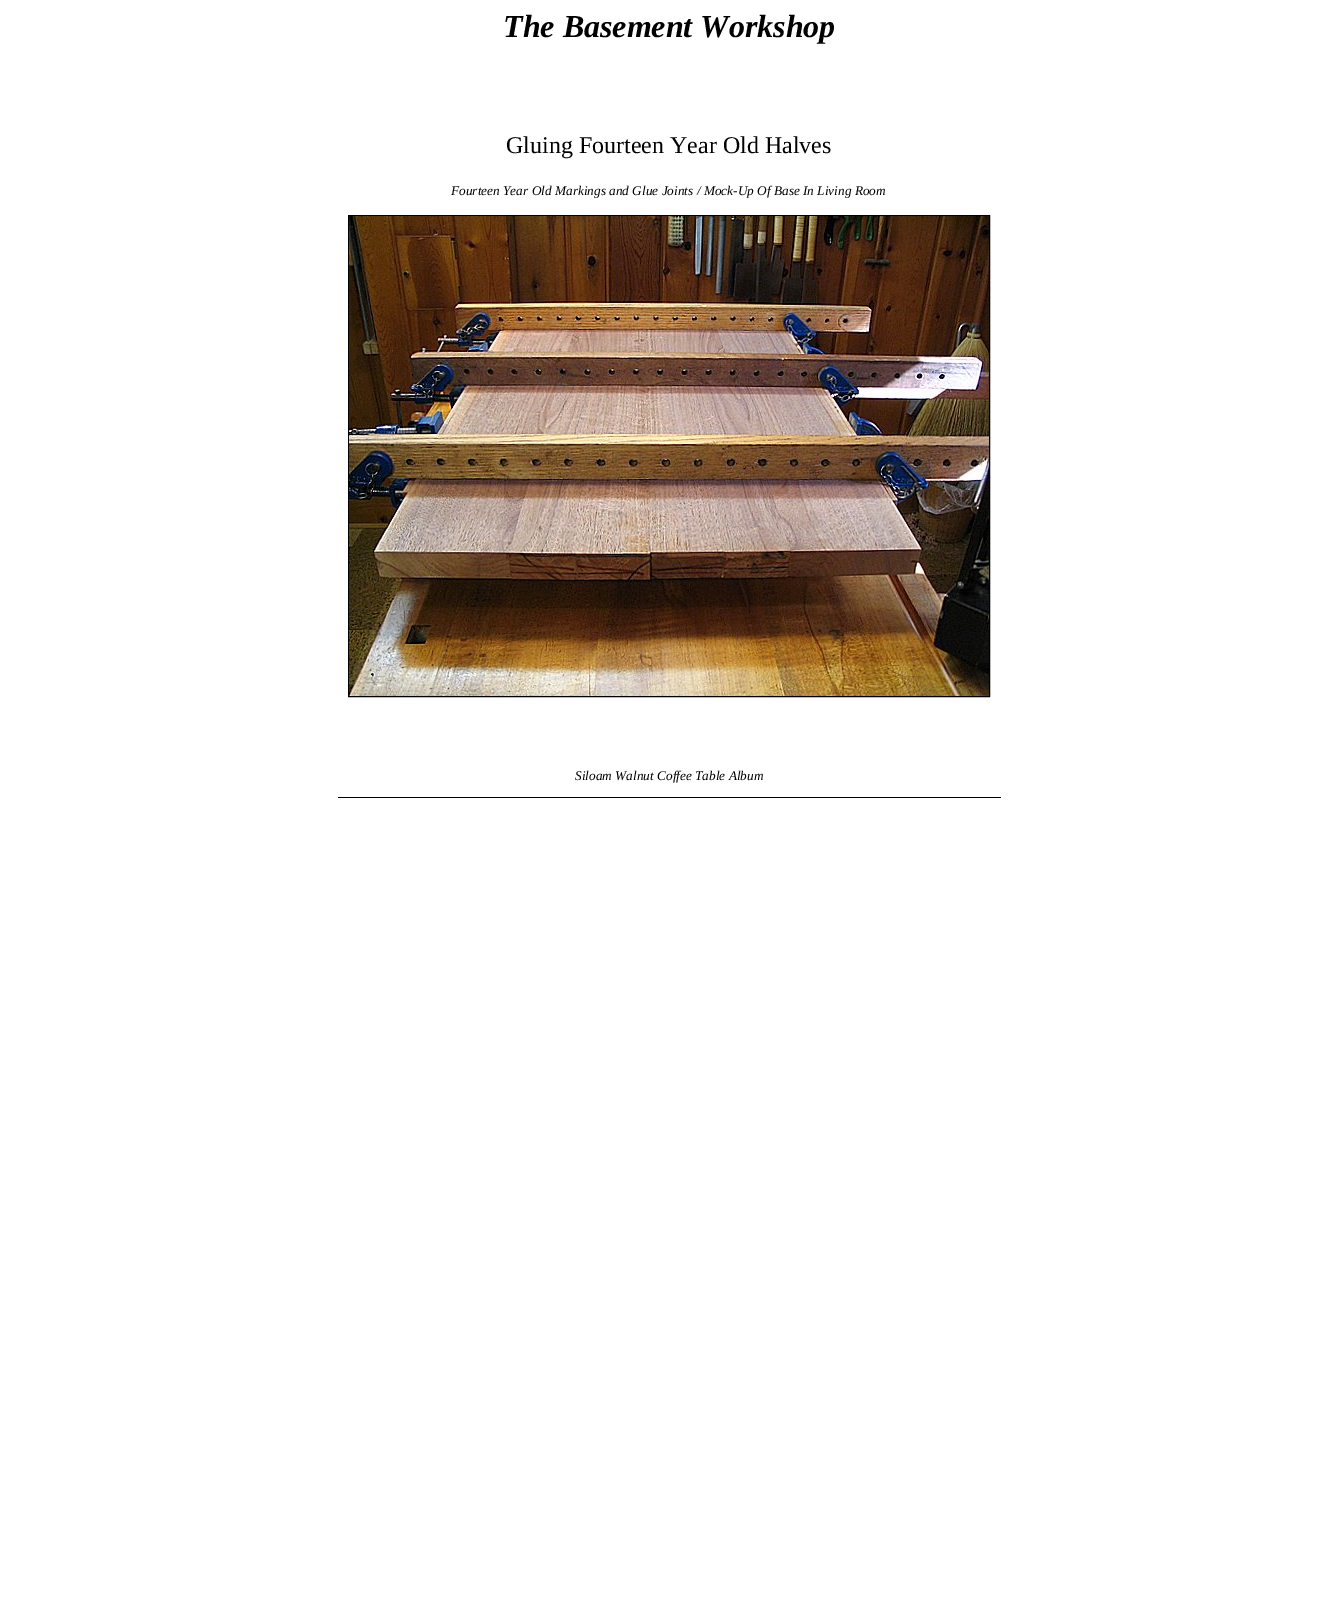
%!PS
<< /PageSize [1338 1609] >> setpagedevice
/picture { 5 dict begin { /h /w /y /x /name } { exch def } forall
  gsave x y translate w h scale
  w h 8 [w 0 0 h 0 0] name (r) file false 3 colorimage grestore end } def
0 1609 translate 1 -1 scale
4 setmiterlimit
1 setgray
0 0 1338 1609 rectfill
/LiberationSerif-BoldItalic [32 0 0 -32 0 0] selectfont
0 setgray
503 37 moveto (The Basement Workshop) show
/LiberationSerif-Regular [24 0 0 -24 0 0] selectfont
506 153 moveto (Gluing Fourteen Year Old Halves) show
/LiberationSerif-Italic [13.3 0 0 -13.3 0 0] selectfont
451 195 moveto (Fourteen Year Old Markings and Glue Joints / Mock-Up Of Base In Living Room) show
348.5 215.5 641 481 rectstroke
(img1.rgb) 349 216 640 480 picture
575 780 moveto (Siloam Walnut Coffee Table Album) show
338 797 663 1 rectfill
showpage
